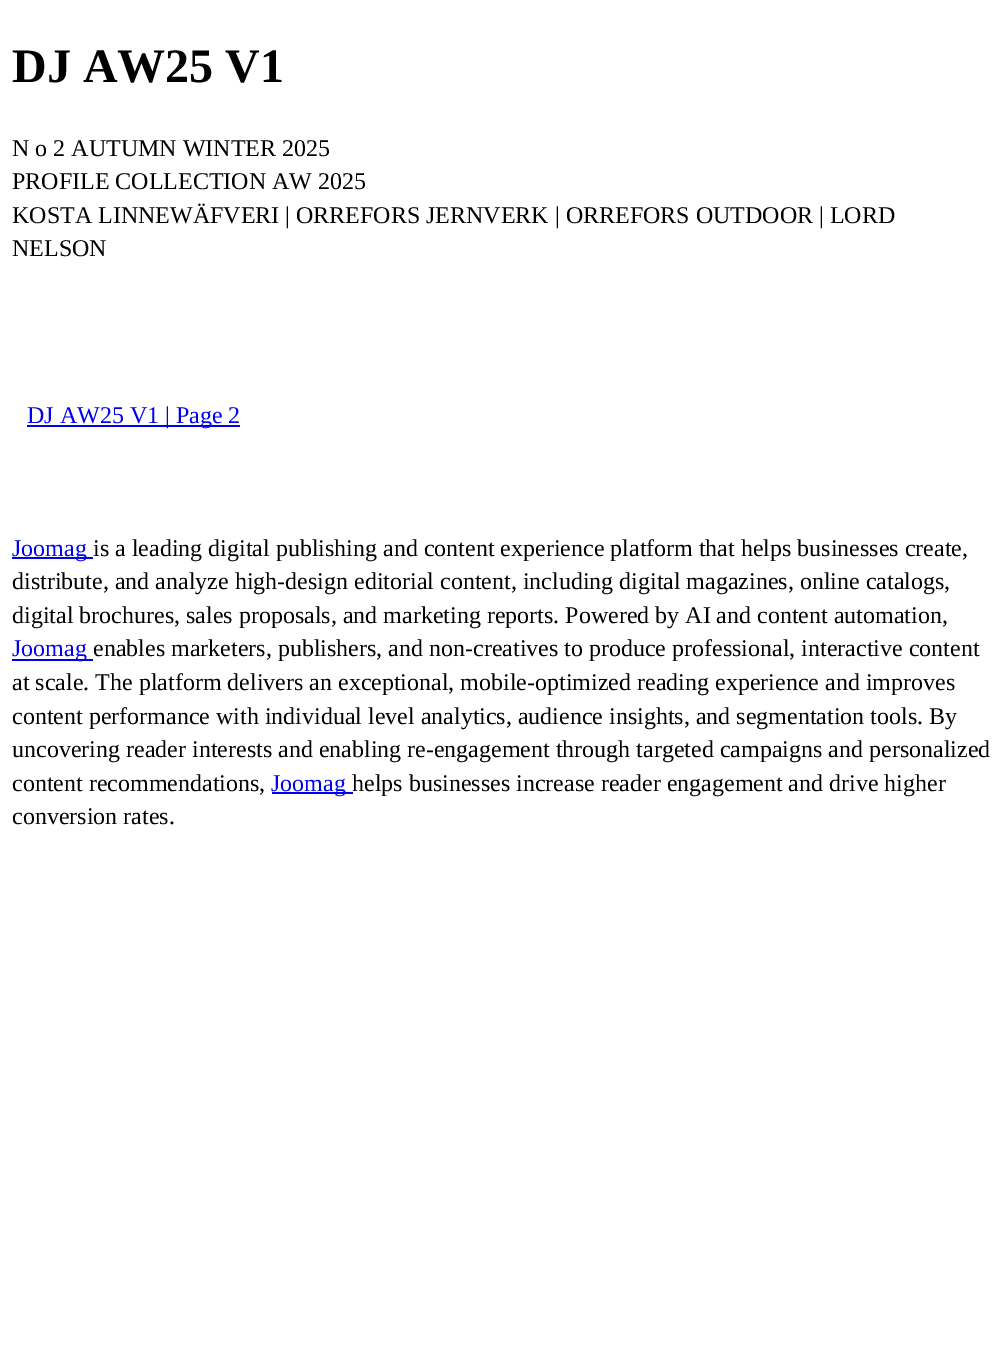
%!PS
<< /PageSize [1003 1365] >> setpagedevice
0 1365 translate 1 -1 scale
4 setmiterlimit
1 setgray
0 0 1003 1365 rectfill
/LiberationSerif-Bold [48 0 0 -48 0 0] selectfont
0 setgray
12 82 moveto (DJ AW25 V1) show
/LiberationSerif-Regular [24 0 0 -24 0 0] selectfont
12 156 moveto (N o 2 AUTUMN WINTER 2025) show
12 189 moveto (PROFILE COLLECTION AW 2025) show
12 223 moveto (KOSTA LINNEWÄFVERI | ORREFORS JERNVERK | ORREFORS OUTDOOR | LORD) show
12 256 moveto (NELSON) show
0 0 0.933 setrgbcolor
27 425 213 2 rectfill
27 423 moveto (DJ AW25 V1 | Page 2) show
12 557 81 2 rectfill
12 556 moveto (Joomag) show
0 setgray
93 556 moveto (is a leading digital publishing and content experience platform that helps businesses create,) show
12 589 moveto (distribute, and analyze high-design editorial content, including digital magazines, online catalogs,) show
12 623 moveto (digital brochures, sales proposals, and marketing reports. Powered by AI and content automation,) show
0 0 0.933 setrgbcolor
12 659 81 2 rectfill
12 656 moveto (Joomag) show
0 setgray
93 656 moveto (enables marketers, publishers, and non-creatives to produce professional, interactive content) show
12 690 moveto (at scale. The platform delivers an exceptional, mobile-optimized reading experience and improves) show
12 724 moveto (content performance with individual level analytics, audience insights, and segmentation tools. By) show
12 757 moveto (uncovering reader interests and enabling re-engagement through targeted campaigns and personalized) show
12 791 moveto (content recommendations,) show
0 0 0.933 setrgbcolor
272 792 81 2 rectfill
271 791 moveto (Joomag) show
0 setgray
352 791 moveto (helps businesses increase reader engagement and drive higher) show
12 824 moveto (conversion rates.) show
showpage
